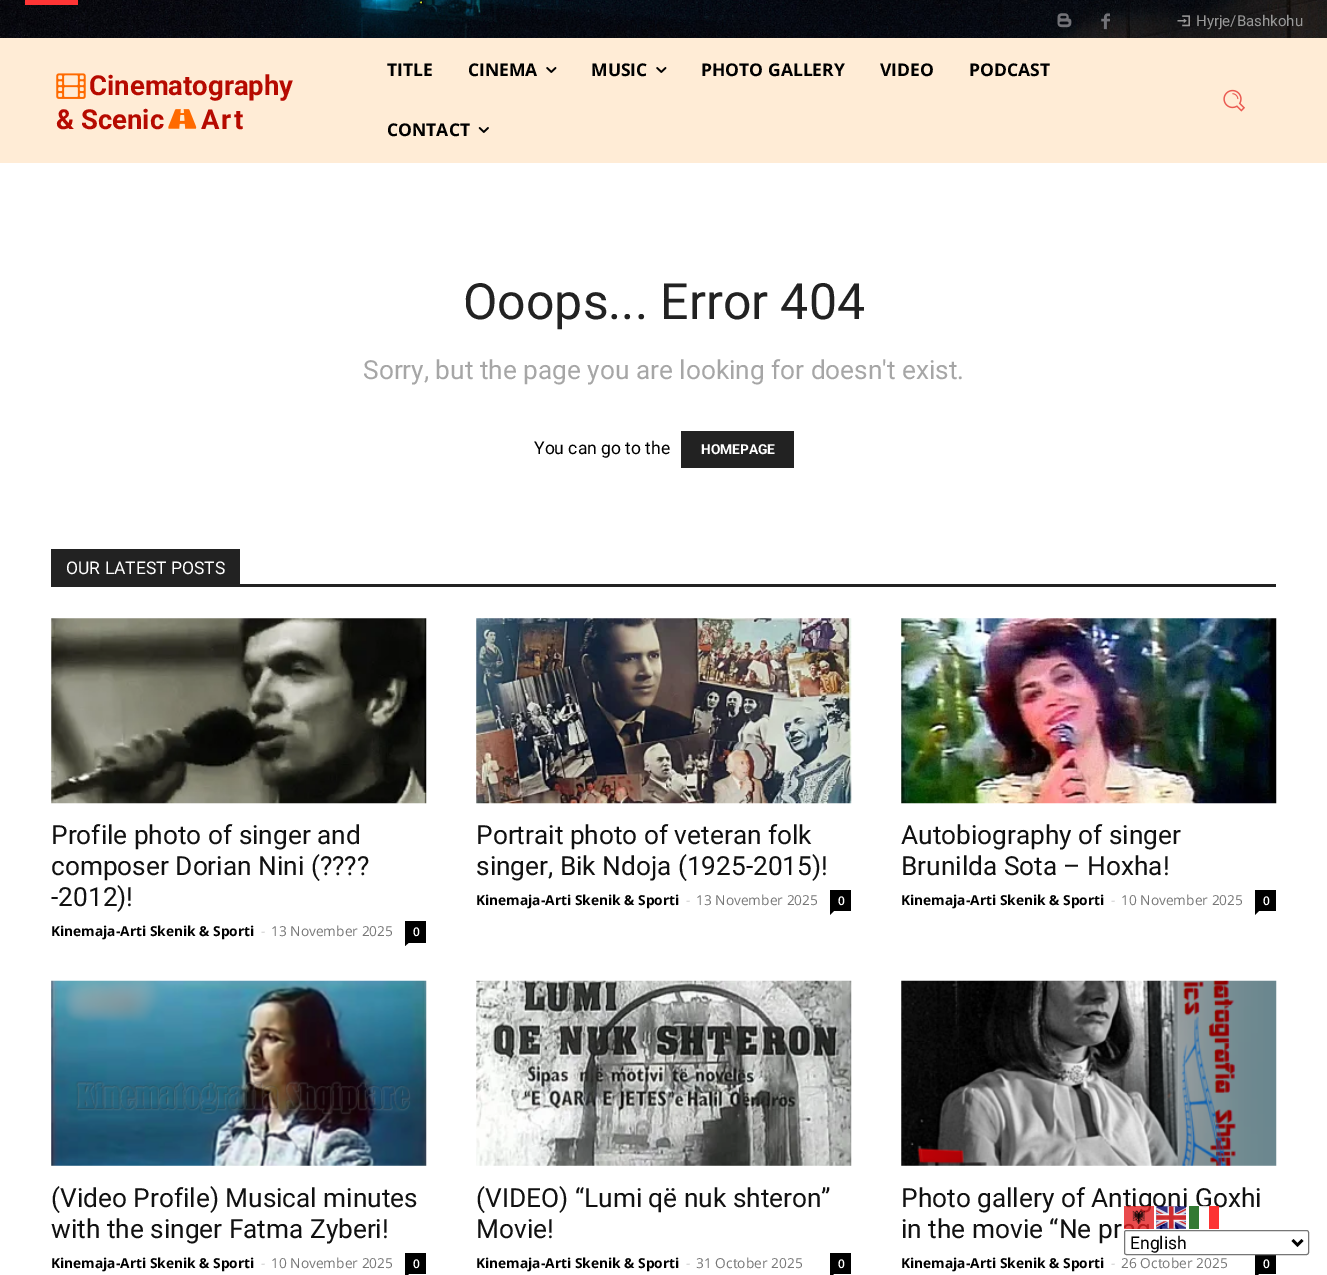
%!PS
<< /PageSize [1327 1275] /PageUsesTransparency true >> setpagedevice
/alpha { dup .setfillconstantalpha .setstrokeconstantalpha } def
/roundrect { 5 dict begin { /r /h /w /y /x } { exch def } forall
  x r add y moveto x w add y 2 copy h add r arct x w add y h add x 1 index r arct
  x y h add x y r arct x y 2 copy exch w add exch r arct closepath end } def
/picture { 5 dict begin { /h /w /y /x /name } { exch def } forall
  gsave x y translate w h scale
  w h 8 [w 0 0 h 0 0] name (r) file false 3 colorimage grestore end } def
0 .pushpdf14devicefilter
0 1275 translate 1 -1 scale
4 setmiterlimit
1 setgray
0 0 1327 1275 rectfill
(img1.rgb) 0 0 1327 38 picture
1 0.208 0.208 setrgbcolor
25 0 53 5 rectfill
(img2.rgb) 1057 13 15 15 picture
(img3.rgb) 1101 13 9 17 picture
(img4.rgb) 1177 15 13 12 picture
/Roboto-Regular [15 0 0 -15 0 0] selectfont
0.6 setgray
1196 26 moveto (Hyrje/Bashkohu) show
1 0.925 0.839 setrgbcolor
0 38 1327 125 rectfill
(img5.rgb) 56 73 30 26 picture
/Roboto-Bold [27.5 0 0 -27.5 0 0] selectfont
0.714 0.039 0 setrgbcolor
89 95 moveto (Cinematography) show
56 129 moveto (& Scenic) show
(img6.rgb) 168 109 29 20 picture
201 129 moveto 2 0 (Art) ashow
/OpenSans-Bold [17.5 0 0 -17.5 0 0] selectfont
0 setgray
387 76 moveto (TITLE) show
468 76 moveto (CINEMA) show
(img7.rgb) 546 67 11 6 picture
591 76 moveto (MUSIC) show
(img7.rgb) 656 67 11 6 picture
701 76 moveto (PHOTO GALLERY) show
880 76 moveto (VIDEO) show
969 76 moveto (PODCAST) show
387 136 moveto (CONTACT) show
(img8.rgb) 478 127 11 6 picture
(img9.rgb) 1223 89 22 23 picture
/Roboto-Regular [50 0 0 -50 0 0] selectfont
0.133 setgray
463 319 moveto (Ooops... Error 404) show
/Roboto-Regular [26.25 0 0 -26.25 0 0] selectfont
0.651 setgray
363 379 moveto (Sorry, but the page you are looking for doesn't exist.) show
/Roboto-Regular [17.5 0 0 -17.5 0 0] selectfont
0 setgray
534 454 moveto (You can go to the) show
0.133 setgray
681 431 113 37 rectfill
/Roboto-Bold [13.75 0 0 -13.75 0 0] selectfont
1 setgray
701 454 moveto (HOMEPAGE) show
0.133 setgray
51 584 1225 3 rectfill
51 549 189 35 rectfill
/Roboto-Regular [17.5 0 0 -17.5 0 0] selectfont
1 setgray
66 574 moveto (OUR LATEST POSTS) show
(img10.rgb) 51 618 376 186 picture
/Roboto-Regular [26.25 0 0 -26.25 0 0] selectfont
0.067 setgray
51 844 moveto (Profile photo of singer and) show
51 875 moveto (composer Dorian Nini \(????) show
51 906 moveto (-2012\)!) show
/OpenSans-Bold [13.75 0 0 -13.75 0 0] selectfont
0 setgray
51 936 moveto (Kinemaja-Arti Skenik & Sporti) show
/OpenSans-Regular [13.75 0 0 -13.75 0 0] selectfont
0.8 setgray
261 936 moveto (-) show
0.463 setgray
271 936 moveto (13 November 2025) show
0 setgray
405 921 21 22 rectfill
/OpenSans-SemiBold [12 0 0 -12 0 0] selectfont
1 setgray
413 936 moveto (0) show
0 setgray
newpath 405 942.5 moveto 409 942.5 lineto 405 946 lineto closepath fill
(img11.rgb) 476 618 376 186 picture
/Roboto-Regular [26.25 0 0 -26.25 0 0] selectfont
0.067 setgray
476 844 moveto (Portrait photo of veteran folk) show
476 875 moveto (singer, Bik Ndoja \(1925-2015\)!) show
/OpenSans-Bold [13.75 0 0 -13.75 0 0] selectfont
0 setgray
476 905 moveto (Kinemaja-Arti Skenik & Sporti) show
/OpenSans-Regular [13.75 0 0 -13.75 0 0] selectfont
0.8 setgray
686 905 moveto (-) show
0.463 setgray
696 905 moveto (13 November 2025) show
0 setgray
830 890 21 21 rectfill
/OpenSans-SemiBold [12 0 0 -12 0 0] selectfont
1 setgray
838 905 moveto (0) show
0 setgray
newpath 830 911 moveto 834 911 lineto 830 915 lineto closepath fill
(img12.rgb) 901 618 376 186 picture
/Roboto-Regular [26.25 0 0 -26.25 0 0] selectfont
0.067 setgray
901 844 moveto (Autobiography of singer) show
901 875 moveto (Brunilda Sota – Hoxha!) show
/OpenSans-Bold [13.75 0 0 -13.75 0 0] selectfont
0 setgray
901 905 moveto (Kinemaja-Arti Skenik & Sporti) show
/OpenSans-Regular [13.75 0 0 -13.75 0 0] selectfont
0.8 setgray
1111 905 moveto (-) show
0.463 setgray
1121 905 moveto (10 November 2025) show
0 setgray
1255 890 21 21 rectfill
/OpenSans-SemiBold [12 0 0 -12 0 0] selectfont
1 setgray
1263 905 moveto (0) show
0 setgray
newpath 1255 911 moveto 1259 911 lineto 1255 915 lineto closepath fill
(img13.rgb) 51 980 376 186 picture
/Roboto-Regular [26.25 0 0 -26.25 0 0] selectfont
0.067 setgray
51 1207 moveto (\(Video Profile\) Musical minutes) show
51 1238 moveto (with the singer Fatma Zyberi!) show
/OpenSans-Bold [13.75 0 0 -13.75 0 0] selectfont
0 setgray
51 1268 moveto (Kinemaja-Arti Skenik & Sporti) show
/OpenSans-Regular [13.75 0 0 -13.75 0 0] selectfont
0.8 setgray
261 1268 moveto (-) show
0.463 setgray
271 1268 moveto (10 November 2025) show
0 setgray
405 1253 21 21 rectfill
/OpenSans-SemiBold [12 0 0 -12 0 0] selectfont
1 setgray
413 1268 moveto (0) show
0 setgray
newpath 405 1274 moveto 409 1274 lineto 405 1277.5 lineto closepath fill
(img14.rgb) 476 980 376 186 picture
/Roboto-Regular [26.25 0 0 -26.25 0 0] selectfont
0.067 setgray
476 1207 moveto (\(VIDEO\) “Lumi që nuk shteron”) show
476 1238 moveto (Movie!) show
/OpenSans-Bold [13.75 0 0 -13.75 0 0] selectfont
0 setgray
476 1268 moveto (Kinemaja-Arti Skenik & Sporti) show
/OpenSans-Regular [13.75 0 0 -13.75 0 0] selectfont
0.8 setgray
686 1268 moveto (-) show
0.463 setgray
696 1268 moveto (31 October 2025) show
0 setgray
830 1253 21 21 rectfill
/OpenSans-SemiBold [12 0 0 -12 0 0] selectfont
1 setgray
838 1268 moveto (0) show
0 setgray
newpath 830 1274 moveto 834 1274 lineto 830 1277.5 lineto closepath fill
(img15.rgb) 901 980 376 186 picture
/Roboto-Regular [26.25 0 0 -26.25 0 0] selectfont
0.067 setgray
901 1207 moveto (Photo gallery of Antigoni Goxhi) show
901 1238 moveto (in the movie “Ne pr) show
/OpenSans-Bold [13.75 0 0 -13.75 0 0] selectfont
0 setgray
901 1268 moveto (Kinemaja-Arti Skenik & Sporti) show
/OpenSans-Regular [13.75 0 0 -13.75 0 0] selectfont
0.8 setgray
1111 1268 moveto (-) show
0.463 setgray
1121 1268 moveto (26 October 2025) show
0 setgray
1255 1255 21 19 rectfill
/OpenSans-SemiBold [12 0 0 -12 0 0] selectfont
1 setgray
1263 1268 moveto (0) show
0 setgray
newpath 1255 1274 moveto 1259 1274 lineto 1255 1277.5 lineto closepath fill
(img16.rgb) 1124 1206 30 23 picture
(img17.rgb) 1156 1206 30 23 picture
0.2 0.475 0.2 setrgbcolor
1189 1206 10 23 rectfill
0.8 alpha
1 setgray
1200 1206 19 2 rectfill
0.988 0 0 setrgbcolor
1209 1206 10 23 rectfill
1 alpha
0.463 setgray
1124.5 1230.5 184 24 2 roundrect stroke
0 setgray
2.5 setlinewidth
newpath 1292.5 1240 moveto 1297.5 1245 lineto 1302.5 1240 lineto stroke
/Roboto-Regular [17.5 0 0 -17.5 0 0] selectfont
1130 1249 moveto (English) show
.poppdf14devicefilter showpage
